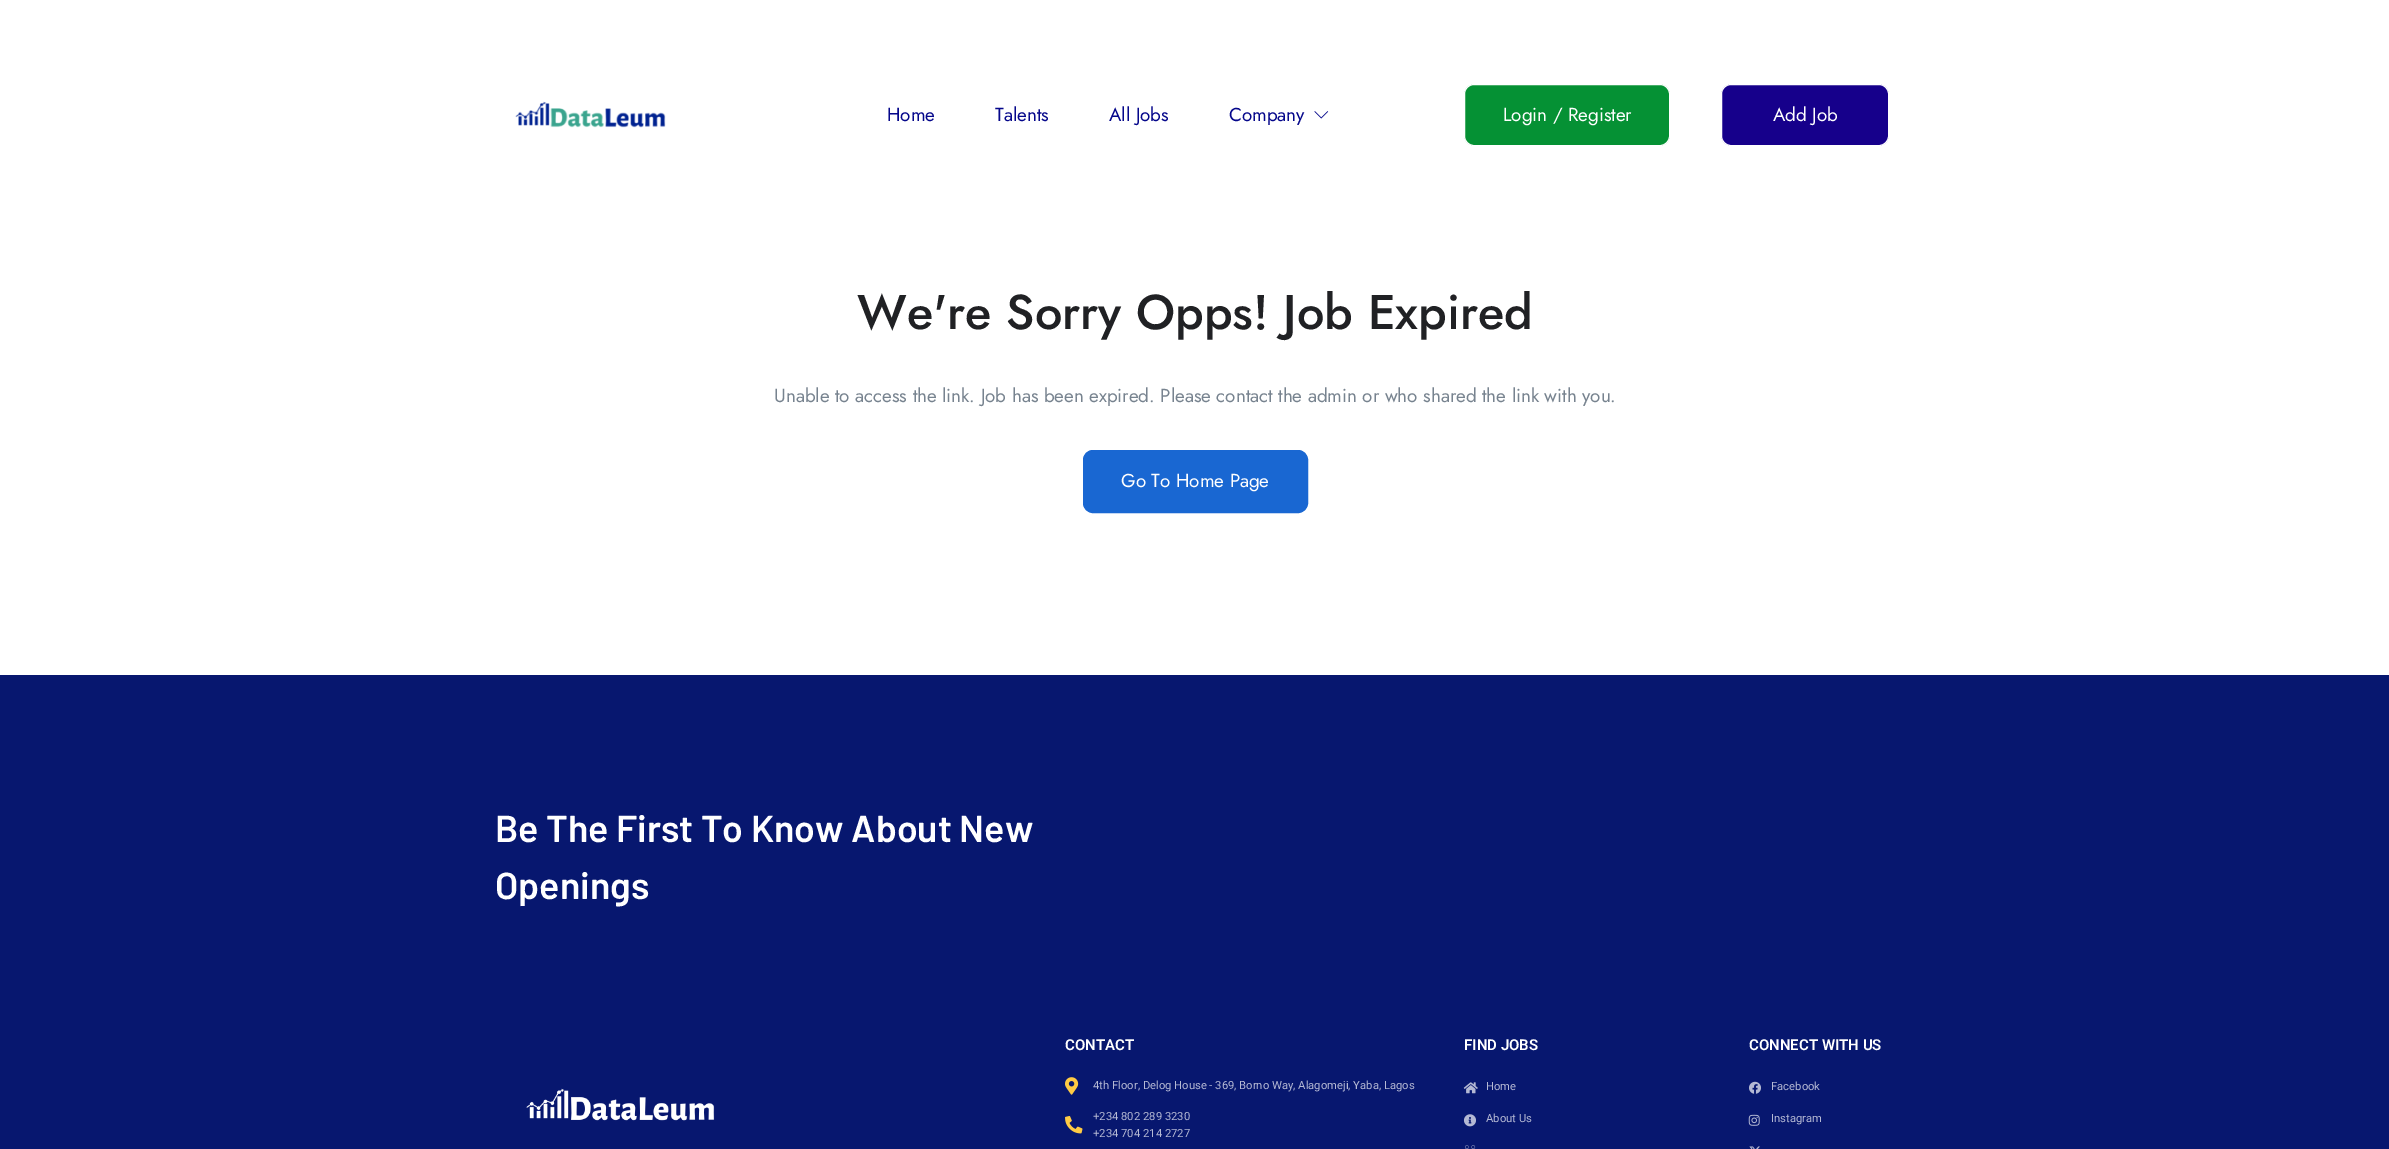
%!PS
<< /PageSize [2389 1149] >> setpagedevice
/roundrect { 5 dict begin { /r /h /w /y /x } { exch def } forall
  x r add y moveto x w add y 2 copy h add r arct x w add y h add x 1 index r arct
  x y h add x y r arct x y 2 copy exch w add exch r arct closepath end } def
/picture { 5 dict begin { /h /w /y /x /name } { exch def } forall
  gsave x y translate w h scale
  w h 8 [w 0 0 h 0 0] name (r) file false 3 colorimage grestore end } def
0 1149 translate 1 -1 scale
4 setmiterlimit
1 setgray
0 0 2389 1149 rectfill
(img1.rgb) 515 101 151 27 picture
/Jost-Regular [18.75 0 0 -18.75 0 0] selectfont
0.02 0.027 0.545 setrgbcolor
887 121 moveto (Home) show
995 121 moveto (Talents) show
1109 121 moveto (All Jobs) show
1229 121 moveto (Company) show
(img2.rgb) 1314 111 15 8 picture
0.02 0.569 0.204 setrgbcolor
1464.5 84.5 205 61 9.5 roundrect gsave fill grestore
1 setgray
stroke
1503 121 moveto (Login / Register) show
0.086 0 0.545 setrgbcolor
1721.5 84.5 167 61 9.5 roundrect gsave fill grestore
1 setgray
stroke
1773 121 moveto (Add Job) show
/Jost-Medium [48.75 0 0 -48.75 0 0] selectfont
0.125 0.129 0.141 setrgbcolor
857 329 moveto (We're Sorry Opps! Job Expired) show
/Jost-Regular [18.75 0 0 -18.75 0 0] selectfont
0.467 0.514 0.561 setrgbcolor
774 402 moveto (Unable to access the link. Job has been expired. Please contact the admin or who shared the link with you.) show
0.098 0.404 0.824 setrgbcolor
1083.5 450.5 224 62 9.5 roundrect gsave fill grestore
stroke
1 setgray
1121 487 moveto (Go To Home Page) show
0.027 0.09 0.435 setrgbcolor
0 675 2389 474 rectfill
/Barlow-SemiBold [37.5 0 0 -37.5 0 0] selectfont
1 setgray
495 842 moveto (Be The First To Know About New) show
495 899 moveto (Openings) show
(img3.rgb) 526 1088 189 33 picture
/Roboto-SemiBold [15 0 0 -15 0 0] selectfont
1065 1050 moveto (CONTACT) show
(img4.rgb) 1065 1077 14 18 picture
/Roboto-Regular [11.25 0 0 -11.25 0 0] selectfont
0.71 0.725 0.831 setrgbcolor
1093 1089 moveto (4th Floor, Delog House - 369, Borno Way, Alagomeji, Yaba, Lagos) show
(img5.rgb) 1065 1116 18 18 picture
1093 1120 moveto (+234 802 289 3230) show
1093 1137 moveto (+234 704 214 2727) show
/Roboto-SemiBold [15 0 0 -15 0 0] selectfont
1 setgray
1464 1050 moveto (FIND JOBS) show
(img6.rgb) 1463 1082 15 12 picture
/Roboto-Regular [11.25 0 0 -11.25 0 0] selectfont
0.71 0.725 0.831 setrgbcolor
1486 1090 moveto (Home) show
(img7.rgb) 1463 1114 13 13 picture
1486 1122 moveto (About Us) show
(img8.rgb) 1465 1145 11 4 picture
/Roboto-SemiBold [15 0 0 -15 0 0] selectfont
1 setgray
1749 1050 moveto (CONNECT WITH US) show
(img9.rgb) 1749 1081 12 13 picture
/Roboto-Regular [11.25 0 0 -11.25 0 0] selectfont
0.71 0.725 0.831 setrgbcolor
1771 1090 moveto (Facebook) show
(img10.rgb) 1748 1114 12 12 picture
1771 1122 moveto (Instagram) show
(img11.rgb) 1749 1146 11 3 picture
showpage
